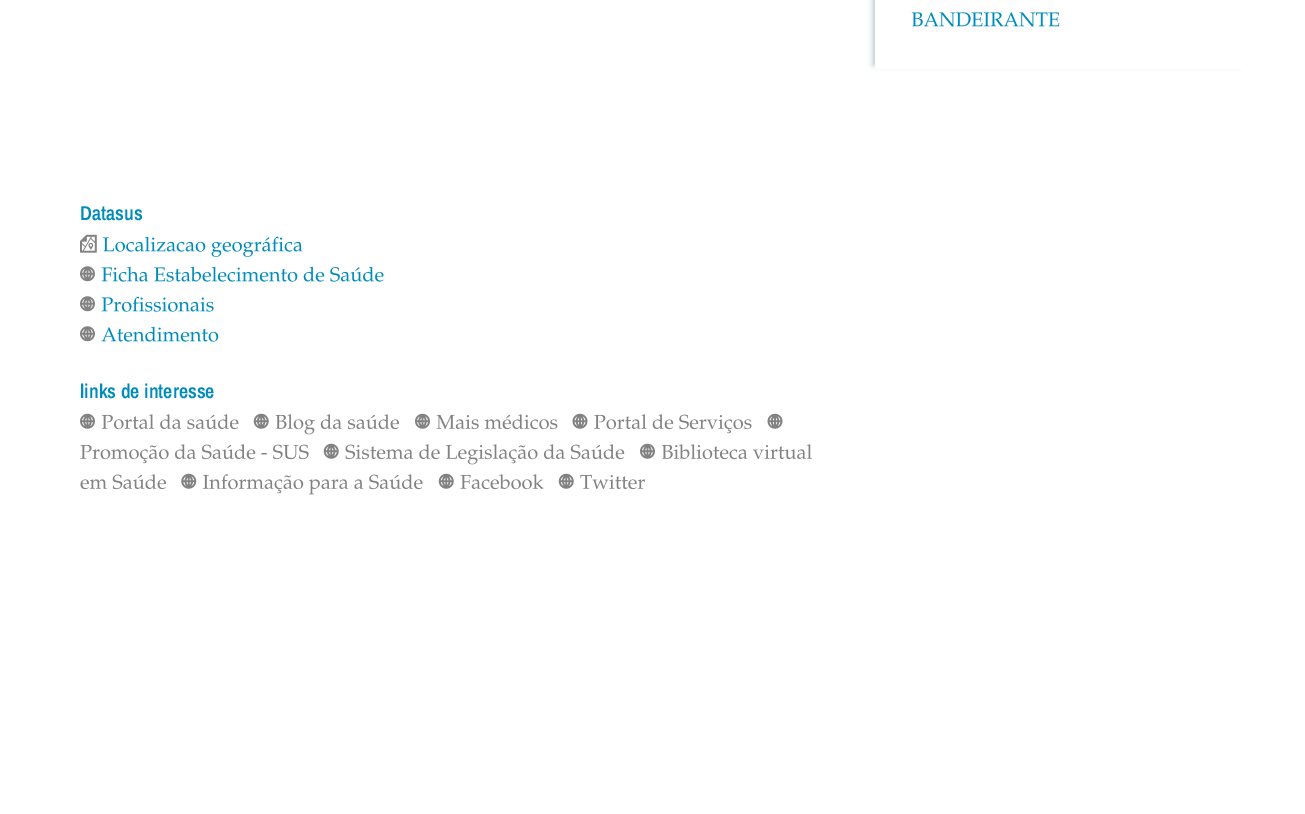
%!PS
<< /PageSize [1305 814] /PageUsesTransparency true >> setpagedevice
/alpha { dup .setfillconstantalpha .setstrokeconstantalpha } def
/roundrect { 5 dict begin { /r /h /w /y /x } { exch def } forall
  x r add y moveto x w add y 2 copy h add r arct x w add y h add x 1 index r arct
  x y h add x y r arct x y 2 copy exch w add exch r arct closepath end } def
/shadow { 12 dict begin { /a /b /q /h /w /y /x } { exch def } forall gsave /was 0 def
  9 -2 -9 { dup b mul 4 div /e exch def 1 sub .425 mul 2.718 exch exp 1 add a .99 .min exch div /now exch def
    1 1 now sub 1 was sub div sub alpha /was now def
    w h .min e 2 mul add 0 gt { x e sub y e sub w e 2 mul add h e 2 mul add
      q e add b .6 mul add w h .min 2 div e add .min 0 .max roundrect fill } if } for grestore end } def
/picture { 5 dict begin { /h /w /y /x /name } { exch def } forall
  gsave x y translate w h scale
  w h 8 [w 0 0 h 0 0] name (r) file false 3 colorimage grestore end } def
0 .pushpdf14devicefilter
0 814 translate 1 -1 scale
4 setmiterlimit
1 setgray
0 0 1305 814 rectfill
0.427 0.573 0.608 setrgbcolor
873 -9 367 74 0 3 0.5 shadow
1 setgray
875 0 370 69 rectfill
(img1.rgb) 911 12 149 15 picture
/ArchivoNarrow-SemiBold [20 0 0 -20 0 0] selectfont
0 0.549 0.729 setrgbcolor
80 220 moveto (Datasus) show
(img2.rgb) 80 234 17 19 picture
(img3.rgb) 102 236 201 21 picture
(img4.rgb) 80 266 15 16 picture
(img5.rgb) 101 266 283 16 picture
(img4.rgb) 80 296 15 16 picture
(img6.rgb) 101 296 113 16 picture
(img4.rgb) 80 326 15 16 picture
(img7.rgb) 101 326 118 16 picture
80 398 moveto (links de interesse) show
(img8.rgb) 80 413 15 16 picture
(img9.rgb) 101 414 138 16 picture
(img10.rgb) 767 413 16 16 picture
(img11.rgb) 80 444 229 20 picture
(img12.rgb) 253 413 16 16 picture
(img13.rgb) 275 414 124 21 picture
(img8.rgb) 415 413 15 16 picture
(img14.rgb) 436 414 122 16 picture
(img10.rgb) 572 413 16 16 picture
(img15.rgb) 594 414 158 20 picture
(img8.rgb) 640 443 15 16 picture
(img16.rgb) 661 444 151 16 picture
(img17.rgb) 80 474 86 16 picture
(img12.rgb) 323 443 16 16 picture
(img18.rgb) 345 444 280 21 picture
(img19.rgb) 181 473 16 16 picture
(img20.rgb) 202 474 221 21 picture
(img12.rgb) 438 473 16 16 picture
(img21.rgb) 460 474 84 16 picture
(img12.rgb) 558 473 16 16 picture
(img22.rgb) 580 474 65 16 picture
.poppdf14devicefilter showpage
